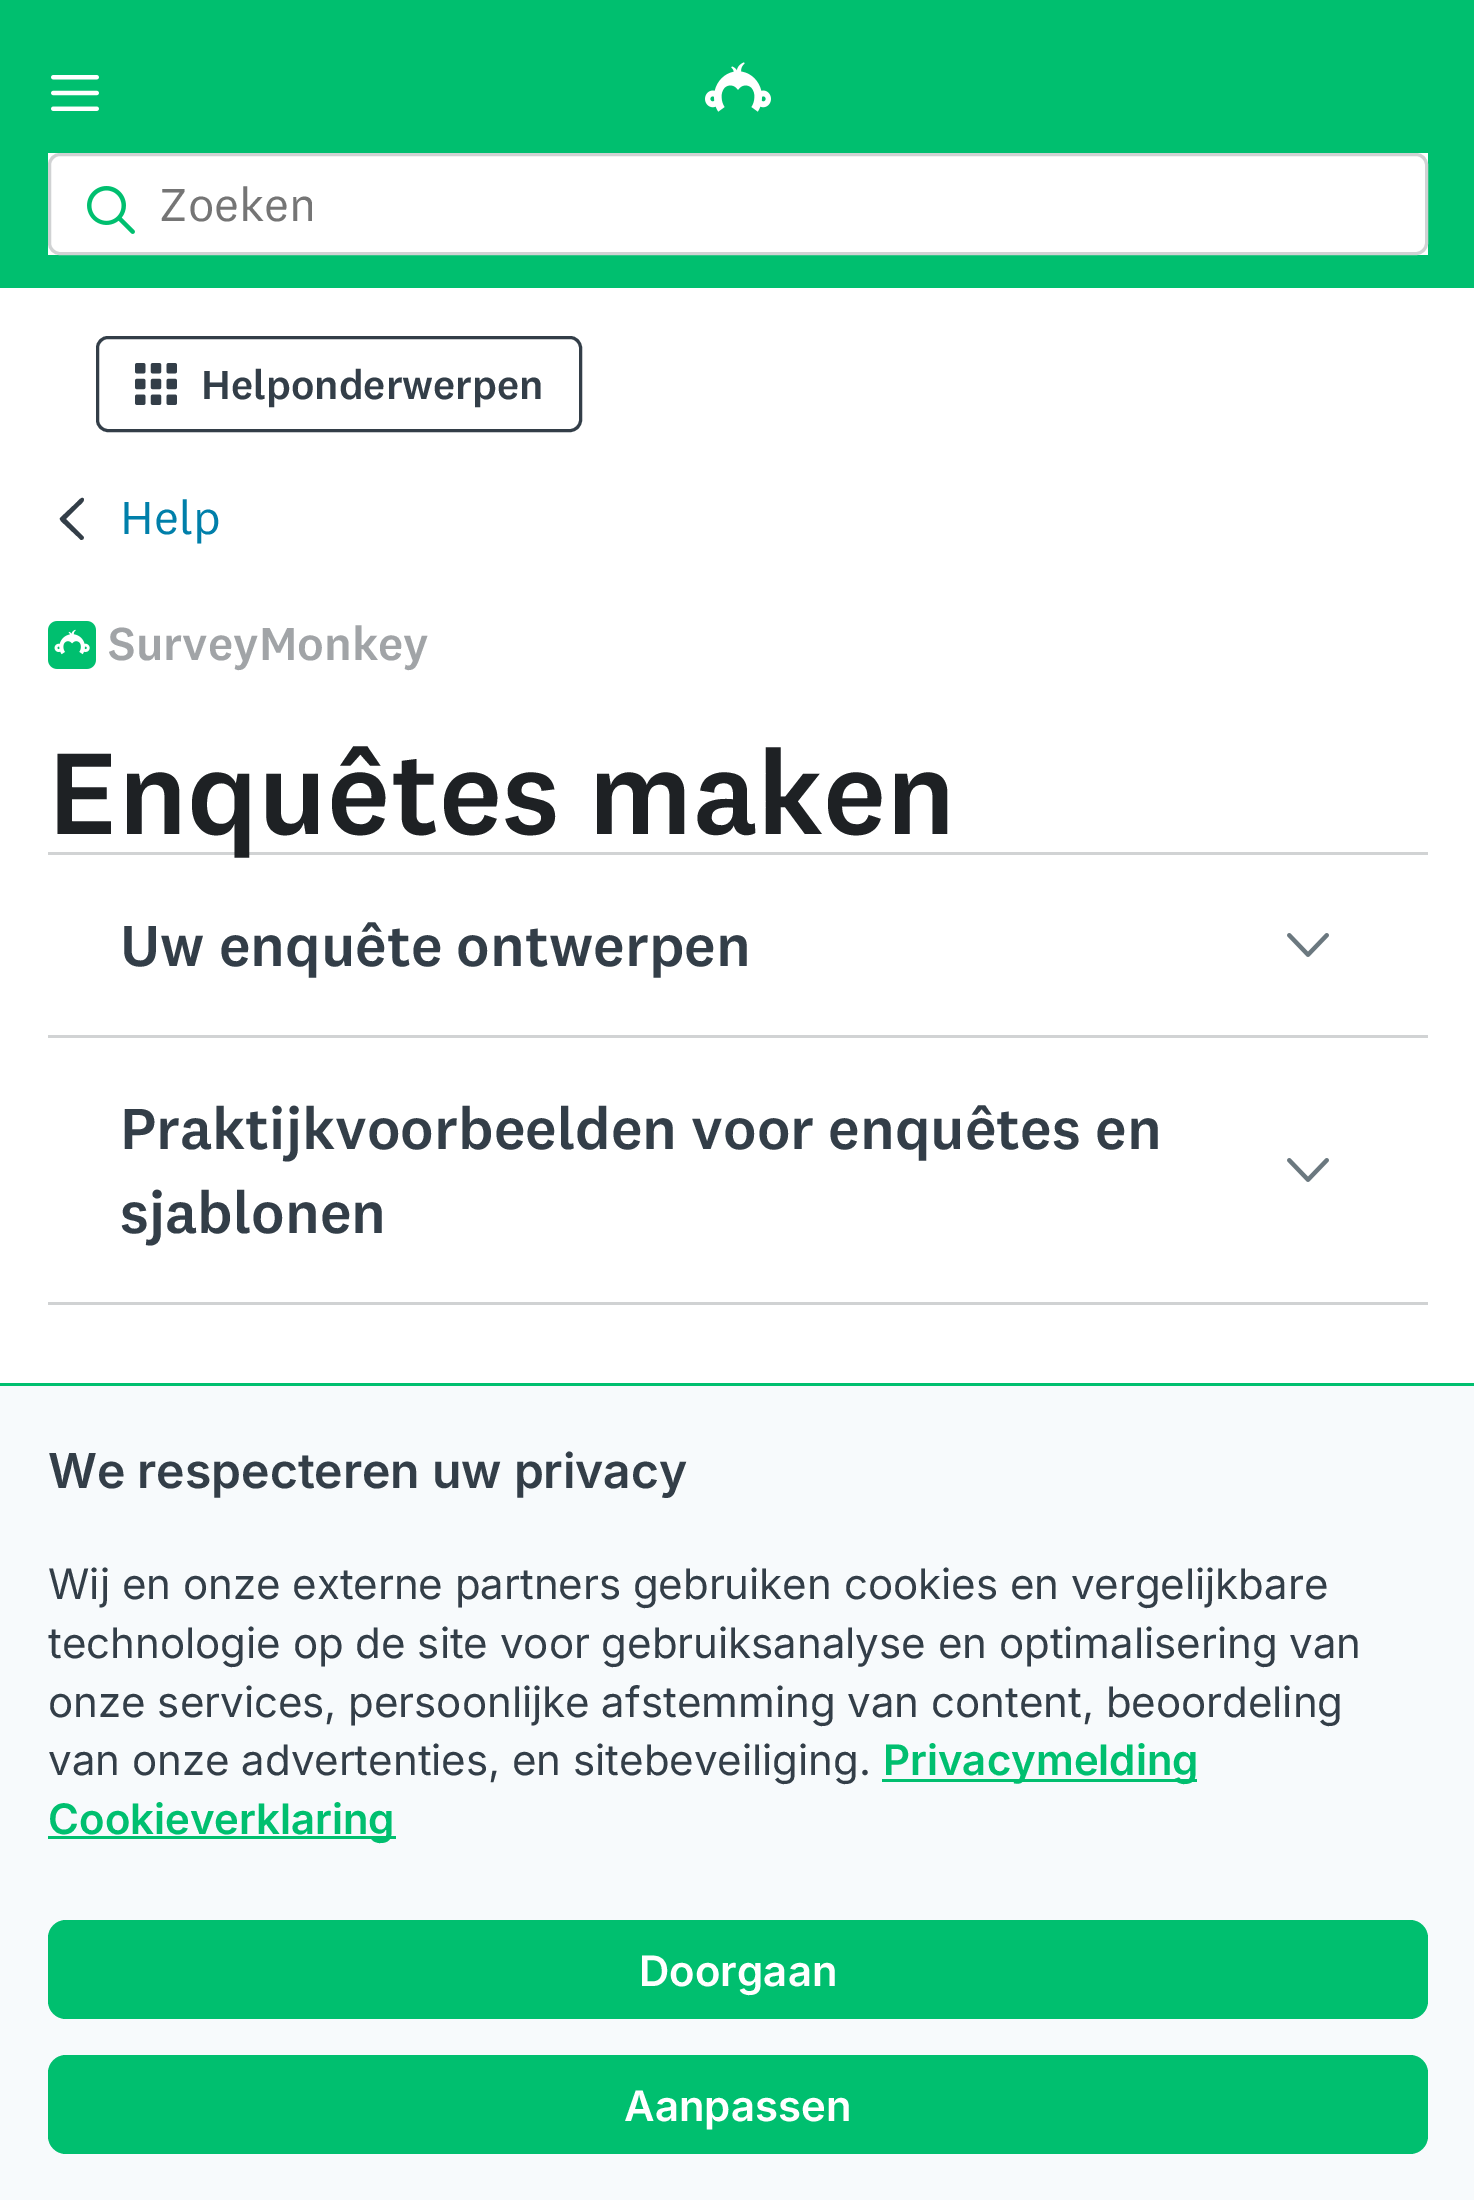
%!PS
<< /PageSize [1474 2200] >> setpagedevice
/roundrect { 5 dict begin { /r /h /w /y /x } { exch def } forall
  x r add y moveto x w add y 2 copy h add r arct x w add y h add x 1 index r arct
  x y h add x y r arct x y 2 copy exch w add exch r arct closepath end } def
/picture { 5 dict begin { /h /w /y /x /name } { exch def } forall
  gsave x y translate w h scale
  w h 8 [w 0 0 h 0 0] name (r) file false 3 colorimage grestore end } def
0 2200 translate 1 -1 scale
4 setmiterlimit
1 setgray
0 0 1474 2200 rectfill
0 0.749 0.435 setrgbcolor
0 0 1474 288 rectfill
(img1.rgb) 51 75 48 36 picture
(img2.rgb) 705 62 66 50 picture
1 setgray
48 153 1380 102 rectfill
0.816 0.824 0.827 setrgbcolor
3 setlinewidth
49.5 154.5 1377 99 10.5 roundrect stroke
(img3.rgb) 87 186 48 48 picture
/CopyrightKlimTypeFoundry-Regular [48 0 0 -48 0 0] selectfont
0.459 setgray
159 221 moveto (Zoeken) show
0.2 0.243 0.282 setrgbcolor
97.5 337.5 483 93 10.5 roundrect stroke
(img4.rgb) 135 363 42 42 picture
/CopyrightKlimTypeFoundry-Medium [42 0 0 -42 0 0] selectfont
201 399 moveto (Helponderwerpen) show
newpath 83 536 moveto 85 538 83 540 81 540 curveto 64 524 lineto 63 523 59 520 60 518 curveto 77 502 lineto 78 501 81 497 83 498 curveto 86 500 81 504 80 505 curveto 66 519 lineto closepath fill
/CopyrightKlimTypeFoundry-Regular [48 0 0 -48 0 0] selectfont
0 0.498 0.667 setrgbcolor
120 534 moveto (Help) show
(img5.rgb) 48 621 48 48 picture
/CopyrightKlimTypeFoundry-Medium [48 0 0 -48 0 0] selectfont
0.631 0.643 0.655 setrgbcolor
108 660 moveto (SurveyMonkey) show
0.82 0.827 0.831 setrgbcolor
48 852 1380 3 rectfill
/CopyrightKlimTypeFoundry-Medium [120 0 0 -120 0 0] selectfont
0.118 0.129 0.141 setrgbcolor
48 834 moveto (Enquêtes maken) show
0.82 0.827 0.831 setrgbcolor
48 1035 1380 3 rectfill
/CopyrightKlimTypeFoundry-Medium [60 0 0 -60 0 0] selectfont
0.2 0.243 0.282 setrgbcolor
120 966 moveto (Uw enquête ontwerpen) show
(img6.rgb) 1287 933 42 24 picture
0.816 0.824 0.827 setrgbcolor
48 1302 1380 3 rectfill
0.2 0.243 0.282 setrgbcolor
120 1149 moveto (Praktijkvoorbeelden voor enquêtes en) show
120 1233 moveto (sjablonen) show
(img6.rgb) 1287 1158 42 24 picture
0.969 0.98 0.988 setrgbcolor
0 1386 1474 814 rectfill
0 0.749 0.435 setrgbcolor
0 1383 1474 3 rectfill
/Inter-SemiBold [48 0 0 -48 0 0] selectfont
0.2 0.243 0.282 setrgbcolor
48 1488 moveto (We respecteren uw privacy) show
/Inter-Regular [42 0 0 -42 0 0] selectfont
48 1599 moveto (Wij en onze externe partners gebruiken cookies en vergelijkbare) show
48 1658 moveto (technologie op de site voor gebruiksanalyse en optimalisering van) show
48 1717 moveto (onze services, persoonlijke afstemming van content, beoordeling) show
48 1775 moveto (van onze advertenties, en sitebeveiliging.) show
0 0.749 0.435 setrgbcolor
882 1779 315 3 rectfill
/Inter-SemiBold [42 0 0 -42 0 0] selectfont
883 1775 moveto (Privacymelding) show
48 1836 348 3 rectfill
48 1834 moveto (Cookieverklaring) show
48 1920 1380 99 18 roundrect fill
1 setgray
639 1986 moveto (Doorgaan) show
0 0.749 0.435 setrgbcolor
48 2055 1380 99 18 roundrect fill
1 setgray
624 2121 moveto (Aanpassen) show
showpage
